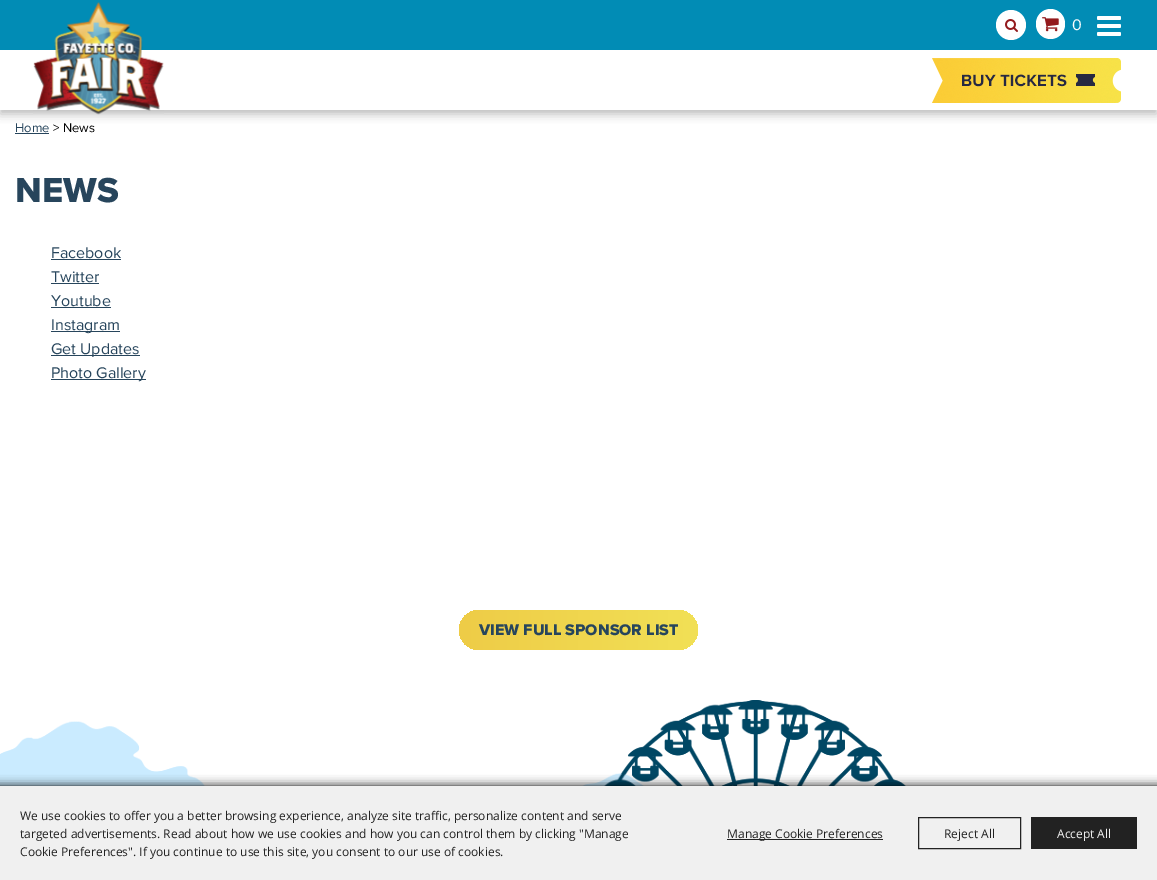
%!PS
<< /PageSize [1157 880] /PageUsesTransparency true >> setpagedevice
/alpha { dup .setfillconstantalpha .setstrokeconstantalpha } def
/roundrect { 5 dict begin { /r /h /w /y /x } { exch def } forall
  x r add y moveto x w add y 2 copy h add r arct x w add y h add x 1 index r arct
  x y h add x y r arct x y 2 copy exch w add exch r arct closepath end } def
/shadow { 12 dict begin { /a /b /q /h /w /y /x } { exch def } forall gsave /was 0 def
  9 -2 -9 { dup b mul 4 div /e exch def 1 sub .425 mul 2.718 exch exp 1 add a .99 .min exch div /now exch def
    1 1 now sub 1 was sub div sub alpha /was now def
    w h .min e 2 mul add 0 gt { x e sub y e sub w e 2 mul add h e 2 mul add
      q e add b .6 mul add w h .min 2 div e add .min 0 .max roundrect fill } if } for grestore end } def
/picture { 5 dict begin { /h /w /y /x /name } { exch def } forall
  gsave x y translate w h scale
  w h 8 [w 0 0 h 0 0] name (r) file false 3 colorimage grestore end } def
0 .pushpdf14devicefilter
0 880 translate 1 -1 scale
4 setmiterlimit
1 setgray
0 0 1157 880 rectfill
gsave
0 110 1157 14 rectclip
0.718 setgray
0 4 1157 110 0 5 1 shadow
grestore
0.004 0.549 0.71 setrgbcolor
0 0 1157 50 rectfill
(img1.rgb) 33 2 131 113 picture
1 setgray
newpath 1011 25 15 0 360 arc closepath fill
(img2.rgb) 1005 19 13 13 picture
1036 9 29 30 14.5 roundrect fill
(img3.rgb) 1042 17 17 15 picture
/ProximaNova-Regular [16 0 0 -16 0 0] selectfont
1072 30 moveto (0) show
(img4.rgb) 1097 16 24 20 picture
(img5.rgb) 932 58 189 45 picture
/ProximaNova-Regular [13 0 0 -13 0 0] selectfont
0.153 0.271 0.361 setrgbcolor
15 132 moveto (Home) show
15 133 34 1 rectfill
0 setgray
53 132 moveto (> News) show
/ProximaNova-ExtraBold [36 0 0 -36 0 0] selectfont
0.153 0.271 0.361 setrgbcolor
15 202 moveto (NEWS) show
/ProximaNova-Regular [16 0 0 -16 0 0] selectfont
51 258 moveto (Facebook) show
51 259 70 1 rectfill
51 282 moveto (Twitter) show
51 283 48 1 rectfill
51 306 moveto (Youtube) show
51 307 60 1 rectfill
51 331 69 1 rectfill
51 330 moveto (Instagram) show
51 355 89 1 rectfill
51 354 moveto (Get Updates) show
51 379 95 1 rectfill
51 378 moveto (Photo Gallery) show
gsave 459 610 239 40 20 roundrect clip newpath
<< /ShadingType 2 /ColorSpace /DeviceRGB /Coords [459 630 698 630] /Extend [true true] /Function << /FunctionType 3 /Domain [0 1] /Functions [<< /FunctionType 2 /Domain [0 1] /C0 [0.933 0.8 0.278] /C1 [0.945 0.875 0.333] /N 1 >> << /FunctionType 2 /Domain [0 1] /C0 [0.945 0.875 0.333] /C1 [0.945 0.875 0.333] /N 1 >>] /Bounds [0.95] /Encode [0 1 0 1] >> >> shfill grestore
/ProximaNova-ExtraBold [16 0 0 -16 0 0] selectfont
479 635 moveto (VIEW FULL SPONSOR LIST) show
(img6.rgb) 0 700 906 86 picture
(img7.rgb) 0 700 906 86 picture
0 setgray
-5 786 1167 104 0 5 1 shadow
0.941 setgray
0 786 1157 94 rectfill
/OpenSans-Regular [12 0 0 -12 0 0] selectfont
0.133 setgray
20 820 moveto (We use cookies to offer you a better browsing experience, analyze site traffic, personalize content and serve) show
20 838 moveto (targeted advertisements. Read about how we use cookies and how you can control them by clicking "Manage) show
20 856 moveto (Cookie Preferences". If you continue to use this site, you consent to our use of cookies.) show
727 839 156 1 rectfill
727 838 moveto (Manage Cookie Preferences) show
918.5 817.5 102 31 rectstroke
944 838 moveto (Reject All) show
1031 817 106 32 rectfill
0.941 setgray
1057 838 moveto (Accept All) show
.poppdf14devicefilter showpage
